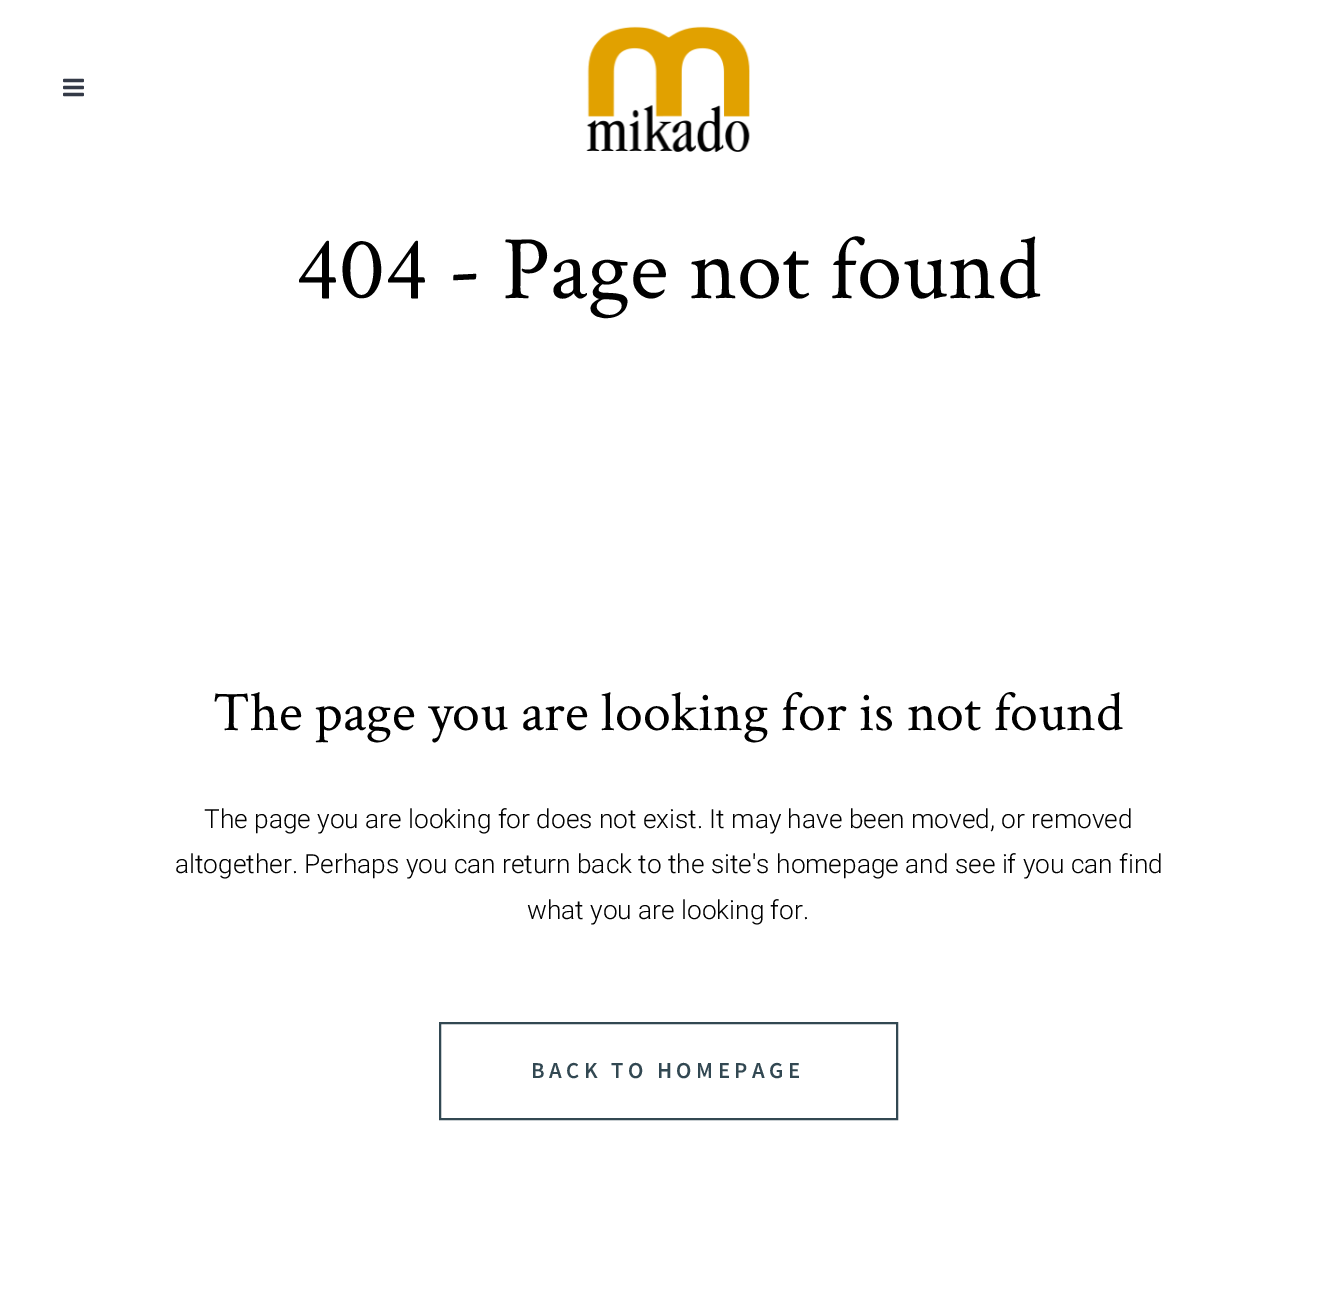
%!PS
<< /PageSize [1337 1315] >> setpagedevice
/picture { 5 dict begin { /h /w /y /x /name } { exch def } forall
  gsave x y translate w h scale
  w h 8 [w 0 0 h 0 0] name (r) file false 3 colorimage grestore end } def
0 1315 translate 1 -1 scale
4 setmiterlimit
1 setgray
0 0 1337 1315 rectfill
(img1.rgb) 63 78 21 19 picture
(img2.rgb) 586 26 164 126 picture
/CrimsonText-Regular [91 0 0 -91 0 0] selectfont
0 setgray
296 298 moveto (404 - Page not found) show
/CrimsonText-Regular [56 0 0 -56 0 0] selectfont
213 730 moveto (The page you are looking for is not found) show
/Roboto-Light [26.25 0 0 -26.25 0 0] selectfont
204 828 moveto (The page you are looking for does not exist. It may have been moved, or removed) show
175 873 moveto (altogether. Perhaps you can return back to the site's homepage and see if you can find) show
527 919 moveto (what you are looking for.) show
0.196 0.282 0.322 setrgbcolor
2 setlinewidth
440 1023 457 96 rectstroke
/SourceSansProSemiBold-SemiBold [22.75 0 0 -22.75 0 0] selectfont
531 1078 moveto 4.5 0 (BACK TO HOMEPAGE) ashow
showpage
